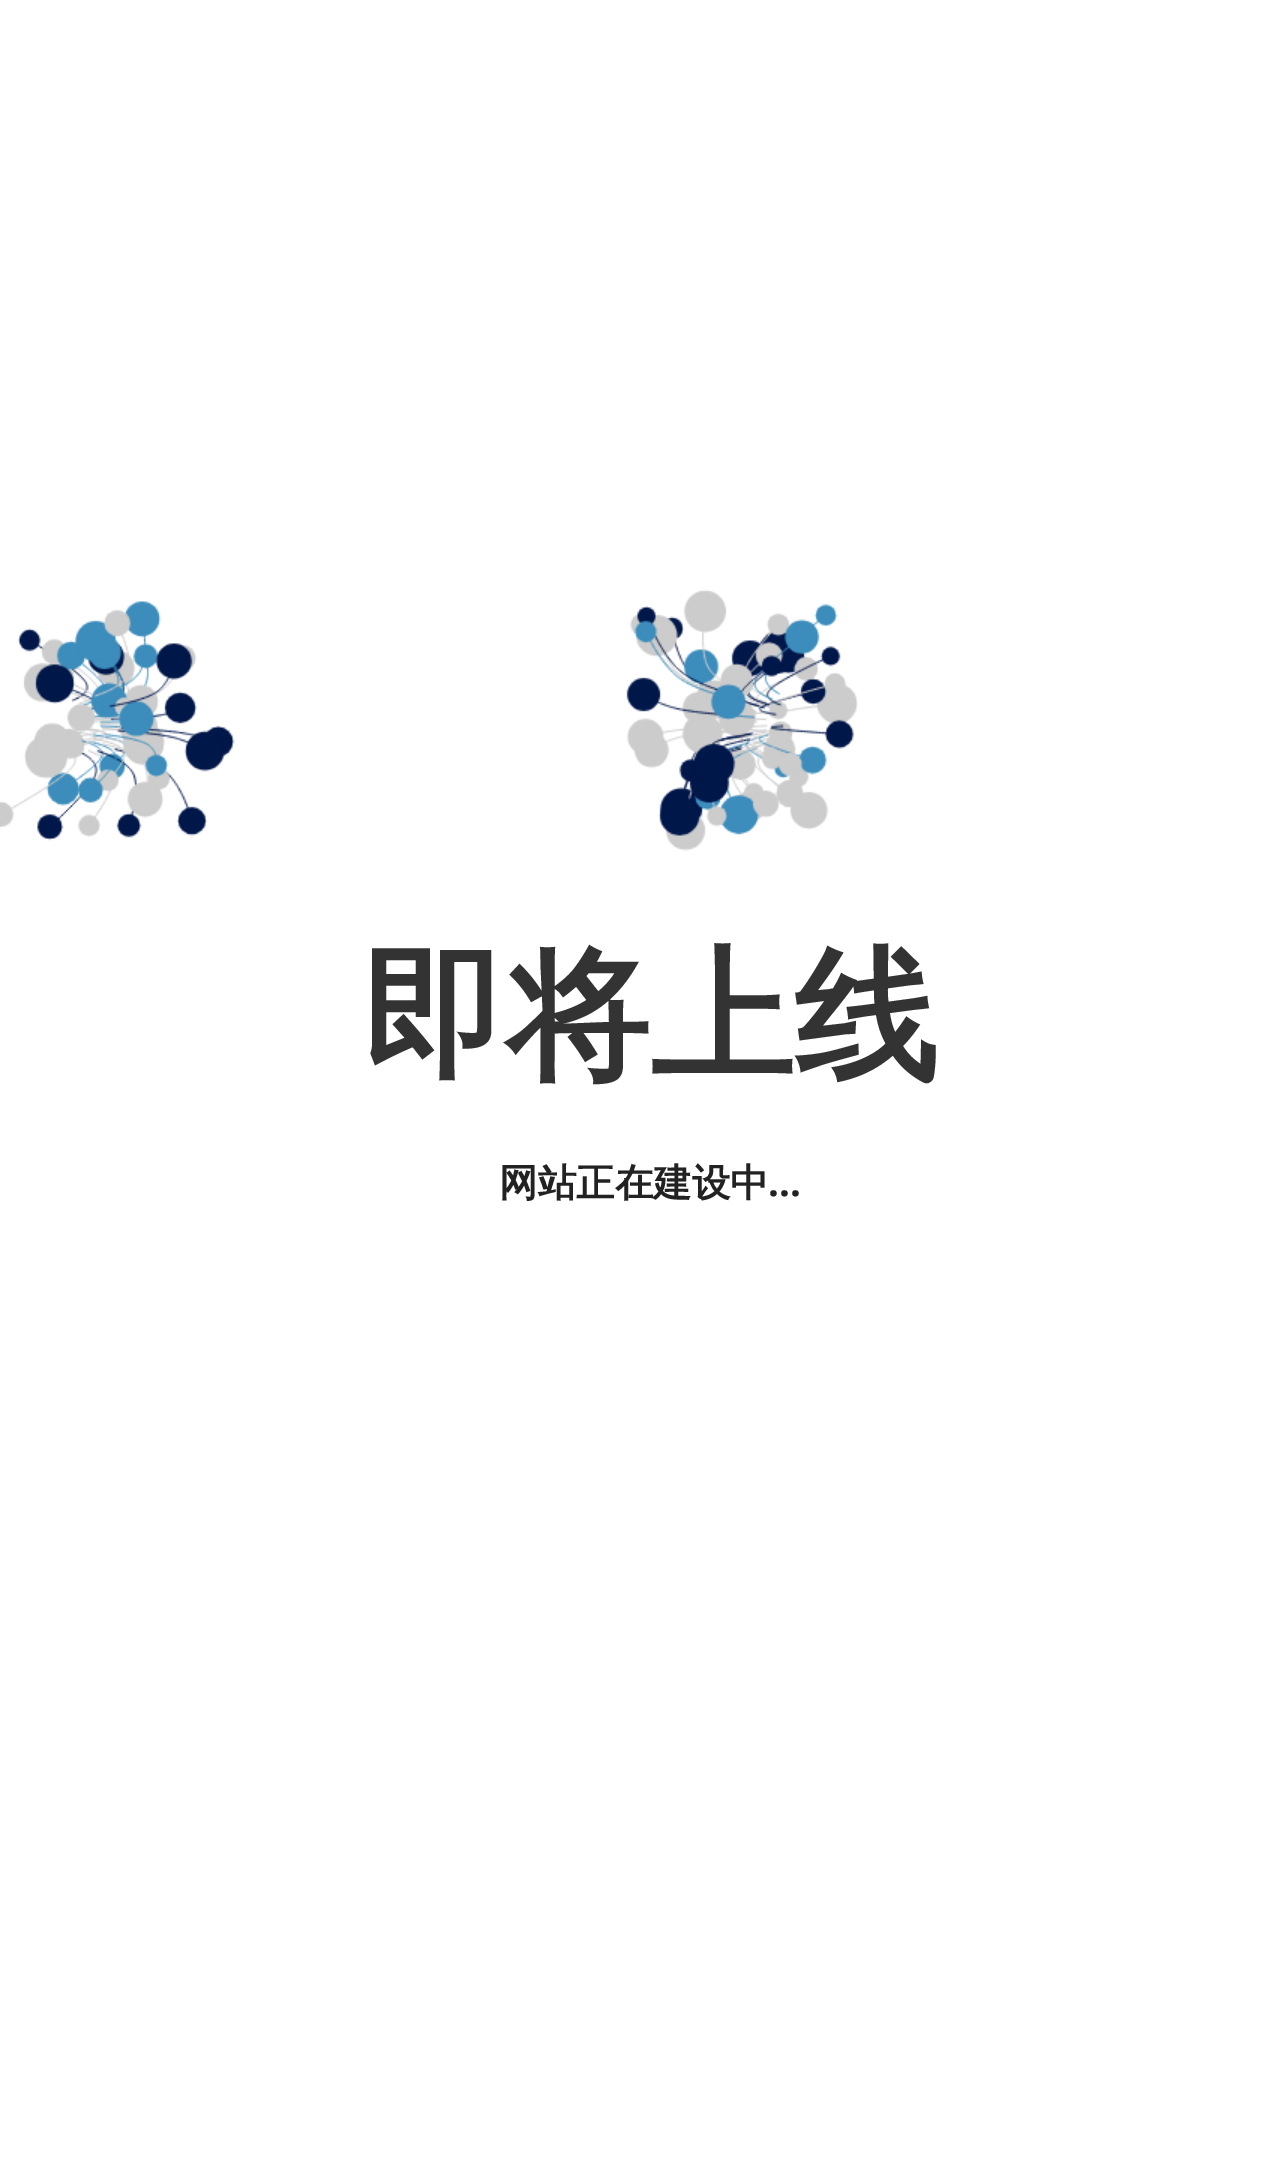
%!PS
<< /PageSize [1274 2168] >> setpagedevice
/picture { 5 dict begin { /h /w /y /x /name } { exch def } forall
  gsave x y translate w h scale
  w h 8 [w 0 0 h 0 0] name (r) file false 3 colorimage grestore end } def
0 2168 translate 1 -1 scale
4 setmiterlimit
1 setgray
0 0 1274 2168 rectfill
(img1.rgb) 0 589 858 262 picture
/WenQuanYiZenHei-Bold [144 0 0 -144 0 0] selectfont
0.2 setgray
362 1066 moveto (即将上线) show
/WenQuanYiZenHei-Bold [38.5 0 0 -38.5 0 0] selectfont
0.133 setgray
499 1196 moveto (网站正在建设中) show
/OpenSans-Bold [38.5 0 0 -38.5 0 0] selectfont
768 1196 moveto (...) show
showpage
